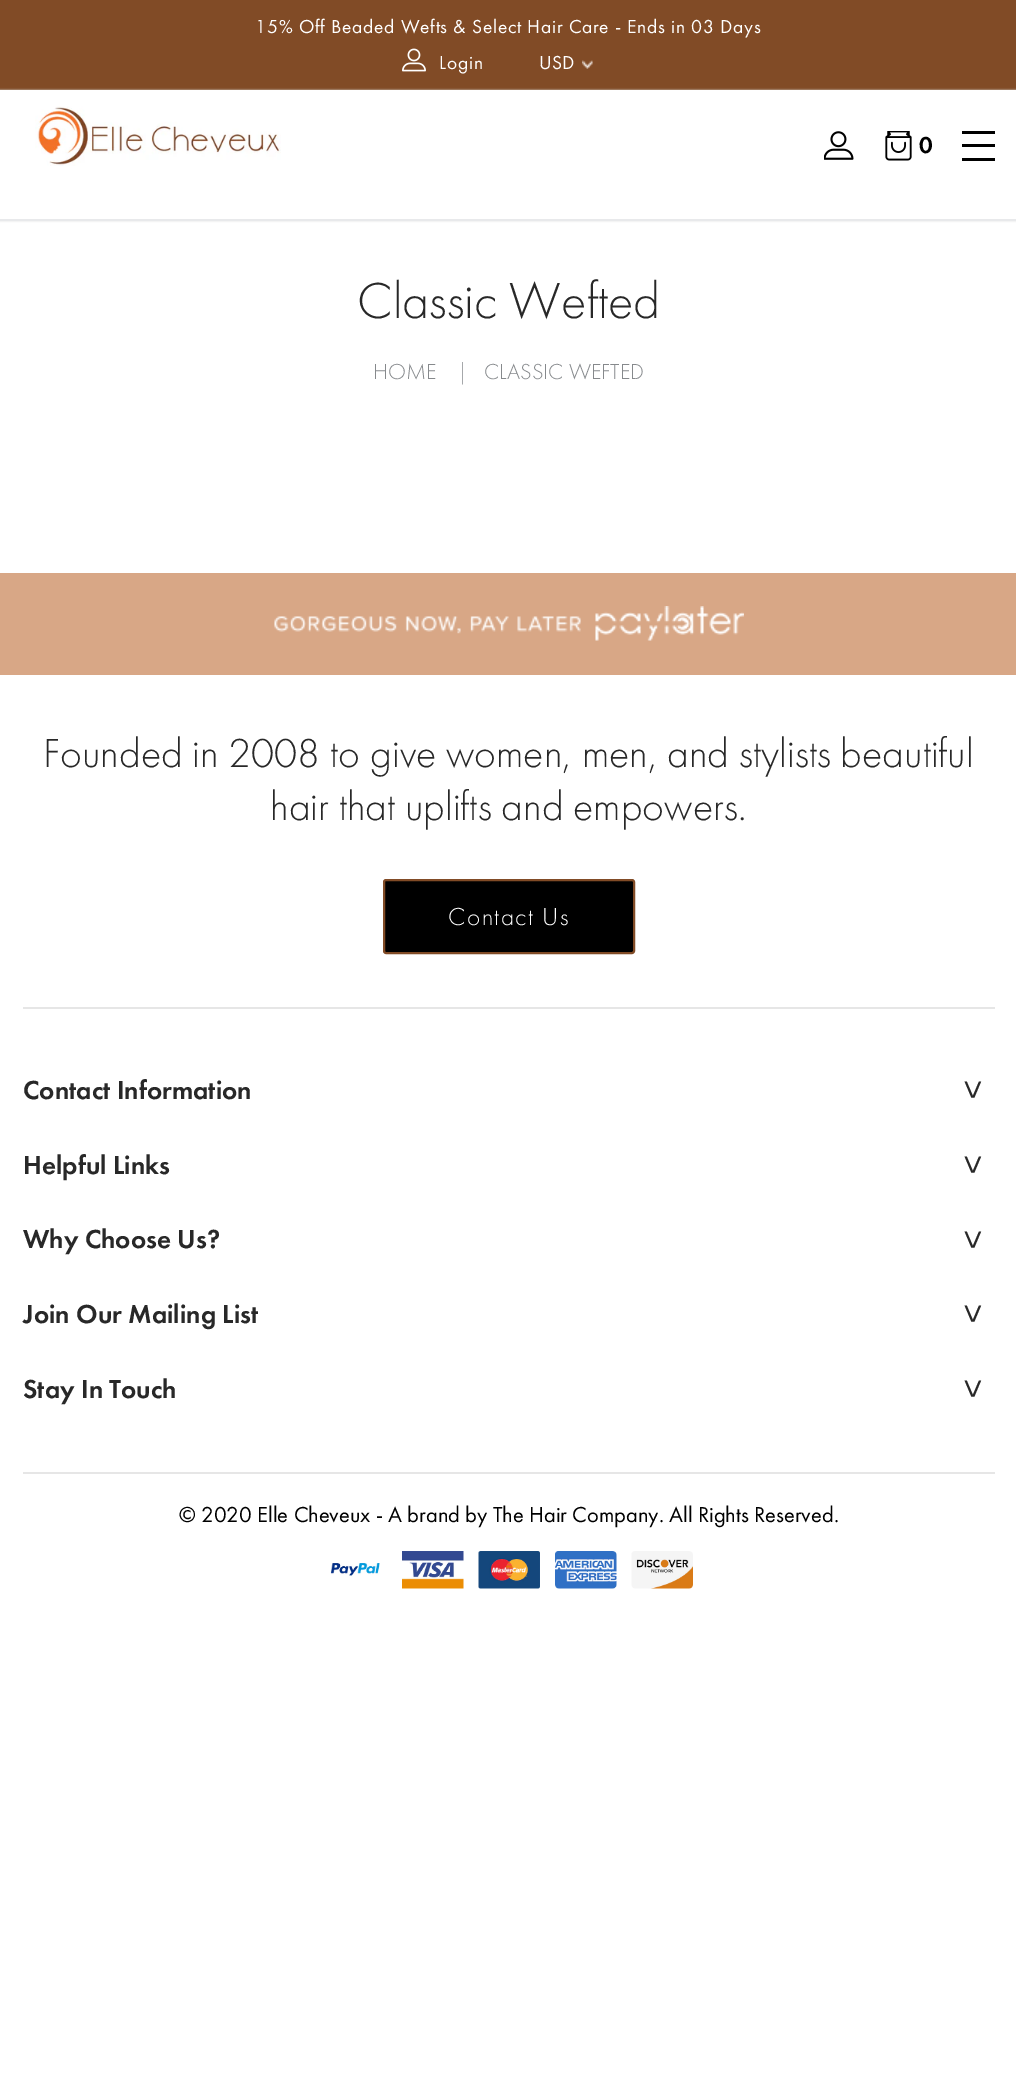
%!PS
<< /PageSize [1016 2087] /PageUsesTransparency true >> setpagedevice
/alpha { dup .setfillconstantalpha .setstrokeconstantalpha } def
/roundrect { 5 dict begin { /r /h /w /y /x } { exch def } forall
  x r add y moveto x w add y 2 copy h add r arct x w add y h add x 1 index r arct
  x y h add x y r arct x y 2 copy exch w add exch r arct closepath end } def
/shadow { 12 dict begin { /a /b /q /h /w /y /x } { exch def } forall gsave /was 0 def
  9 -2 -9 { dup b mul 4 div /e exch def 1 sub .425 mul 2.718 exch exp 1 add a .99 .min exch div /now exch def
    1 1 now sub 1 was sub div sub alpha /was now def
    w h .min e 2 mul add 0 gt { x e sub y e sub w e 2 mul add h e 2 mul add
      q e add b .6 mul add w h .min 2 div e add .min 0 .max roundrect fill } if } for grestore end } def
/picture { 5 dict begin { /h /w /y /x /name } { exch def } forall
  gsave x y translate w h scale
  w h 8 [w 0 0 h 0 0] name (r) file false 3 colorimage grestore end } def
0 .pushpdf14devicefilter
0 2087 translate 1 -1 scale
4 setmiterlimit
1 setgray
0 0 1016 2087 rectfill
0.506 0.294 0.149 setrgbcolor
0 0 1016 90 rectfill
/FuturaPT-Regular [19.5 0 0 -19.5 0 0] selectfont
1 setgray
255 33 moveto 0.75 0 (15% Off Beaded Wefts & Select Hair Care - Ends in 03 Days) ashow
(img1.rgb) 402 48 24 24 picture
439 69 moveto 0.75 0 (Login) ashow
(img2.rgb) 582 60 11 9 picture
539 69 moveto (USD) show
0.867 setgray
0 90 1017 131 0 1 1 shadow
1 setgray
0 90 1016 129 rectfill
0.91 0.914 0.922 setrgbcolor
0 219 1016 2 rectfill
(img3.rgb) 35 106 246 60 picture
(img4.rgb) 824 131 30 29 picture
(img5.rgb) 885 131 27 30 picture
/FuturaPT-Medium [24 0 0 -24 0 0] selectfont
0 setgray
919 153 moveto (0) show
962 144 33 3 rectfill
962 131 33 3 rectfill
962 158 33 3 rectfill
/FuturaPT-Light [52.5 0 0 -52.5 0 0] selectfont
0.157 setgray
357 318 moveto (Classic Wefted) show
/FuturaPT-Light [22.5 0 0 -22.5 0 0] selectfont
0.525 0.537 0.549 setrgbcolor
373 379 moveto (HOME) show
457 379 moveto (|) show
484 379 moveto (CLASSIC WEFTED) show
0.847 0.655 0.525 setrgbcolor
0 573 1016 102 rectfill
(img6.rgb) 274 606 470 35 picture
/FuturaPT-Light [42 0 0 -42 0 0] selectfont
0.157 setgray
43 767 moveto (Founded in 2008 to give women, men, and stylists beautiful) show
270 820 moveto (hair that uplifts and empowers.) show
0 setgray
384 880 250 73 2 roundrect gsave fill grestore
0.506 0.294 0.149 setrgbcolor
2 setlinewidth
stroke
/FuturaPT-Light [25.5 0 0 -25.5 0 0] selectfont
1 setgray
448 925 moveto 1.5 0 (Contact Us) ashow
0.902 setgray
23 1007 972 2 rectfill
/FuturaPT-Medium [27 0 0 -27 0 0] selectfont
0.157 setgray
23 1099 moveto (Contact Information) show
/LiberationSans-Regular [33 0 0 -33 0 0] selectfont
gsave 962 1080 translate 90 rotate 0 0 moveto (>) show grestore
/FuturaPT-Medium [27 0 0 -27 0 0] selectfont
23 1174 moveto (Helpful Links) show
/LiberationSans-Regular [33 0 0 -33 0 0] selectfont
gsave 962 1155 translate 90 rotate 0 0 moveto (>) show grestore
/FuturaPT-Medium [27 0 0 -27 0 0] selectfont
23 1248 moveto (Why Choose Us?) show
/LiberationSans-Regular [33 0 0 -33 0 0] selectfont
gsave 962 1230 translate 90 rotate 0 0 moveto (>) show grestore
/FuturaPT-Medium [27 0 0 -27 0 0] selectfont
23 1323 moveto (Join Our Mailing List) show
/LiberationSans-Regular [33 0 0 -33 0 0] selectfont
gsave 962 1304 translate 90 rotate 0 0 moveto (>) show grestore
/FuturaPT-Medium [27 0 0 -27 0 0] selectfont
23 1398 moveto (Stay In Touch) show
/LiberationSans-Regular [33 0 0 -33 0 0] selectfont
gsave 962 1379 translate 90 rotate 0 0 moveto (>) show grestore
0.902 setgray
23 1472 972 2 rectfill
/FuturaPT-Regular [22.5 0 0 -22.5 0 0] selectfont
0 setgray
179 1522 moveto (© 2020 Elle Cheveux - A brand by The Hair Company. All Rights Reserved.) show
(img7.rgb) 330 1563 50 14 picture
(img8.rgb) 402 1551 62 38 picture
(img9.rgb) 478 1551 62 38 picture
(img10.rgb) 555 1551 62 38 picture
(img11.rgb) 631 1551 62 38 picture
.poppdf14devicefilter showpage
